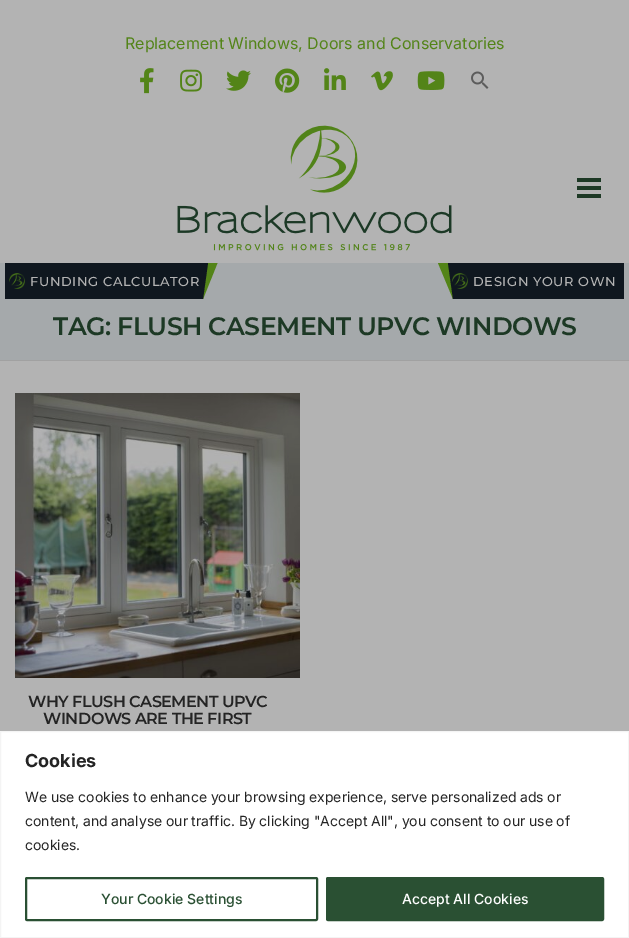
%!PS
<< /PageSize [629 938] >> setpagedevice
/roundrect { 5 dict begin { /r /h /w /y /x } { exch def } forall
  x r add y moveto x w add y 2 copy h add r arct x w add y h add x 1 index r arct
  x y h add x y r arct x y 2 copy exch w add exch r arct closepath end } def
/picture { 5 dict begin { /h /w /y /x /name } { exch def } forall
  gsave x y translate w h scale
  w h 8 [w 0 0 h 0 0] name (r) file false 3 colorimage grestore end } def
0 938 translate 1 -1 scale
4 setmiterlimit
0.702 setgray
0 0 629 938 rectfill
/Inter-Regular [16 0 0 -16 0 0] selectfont
0.325 0.518 0.094 setrgbcolor
125 49 moveto (Replacement Windows, Doors and Conservatories) show
(img1.rgb) 140 68 14 26 picture
(img2.rgb) 180 69 22 23 picture
(img3.rgb) 226 70 25 21 picture
(img4.rgb) 275 68 25 25 picture
(img5.rgb) 324 68 22 22 picture
(img6.rgb) 371 71 22 20 picture
(img7.rgb) 417 71 28 19 picture
(img8.rgb) 471 71 18 18 picture
(img9.rgb) 177 125 275 126 picture
0.114 0.224 0.145 setrgbcolor
577 178 24 4 rectfill
577 186 24 4 rectfill
577 194 24 4 rectfill
0.647 0.663 0.671 setrgbcolor
0 263 629 97 rectfill
0.325 0.518 0.094 setrgbcolor
newpath 203 263 moveto 217.5 263 lineto 203 299 lineto closepath fill
0.059 0.09 0.122 setrgbcolor
newpath 5 263 moveto 5 299 lineto 203 299 lineto 208 263 lineto closepath fill
(img10.rgb) 9 273 16 16 picture
/Montserrat-Medium [13 0 0 -13 0 0] selectfont
0.702 setgray
30 286 moveto 0.6 0 (FUNDING CALCULATOR) ashow
0.325 0.518 0.094 setrgbcolor
newpath 453 263 moveto 453 299 lineto 438 263 lineto closepath fill
0.059 0.09 0.122 setrgbcolor
newpath 448 263 moveto 453 299 lineto 624 299 lineto 624 263 lineto closepath fill
(img10.rgb) 452 273 16 16 picture
0.702 setgray
473 286 moveto 0.6 0 (DESIGN YOUR OWN) ashow
0.631 setgray
0 360 629 1 rectfill
/Montserrat-SemiBold [25.2 0 0 -25.2 0 0] selectfont
0.114 0.224 0.145 setrgbcolor
53 335 moveto -0.5 0 (TAG: FLUSH CASEMENT UPVC WINDOWS) ashow
(img11.rgb) 15 393 285 285 picture
/Montserrat-SemiBold [16 0 0 -16 0 0] selectfont
0.141 setgray
28 707 moveto -0.5 0 (WHY FLUSH CASEMENT UPVC) ashow
43 724 moveto -0.5 0 (WINDOWS ARE THE FIRST) ashow
1 setgray
newpath 0.5 731.5 moveto 628.5 731.5 lineto 628.5 937.5 lineto 0.5 937.5 lineto closepath gsave fill grestore
0.957 setgray
stroke
/Inter-Bold [18 0 0 -18 0 0] selectfont
0.141 setgray
25 767 moveto (Cookies) show
/Inter-Regular [14 0 0 -14 0 0] selectfont
25 802 moveto -0.25 0 32 (We use cookies to enhance your browsing experience, serve personalized ads or) widthshow
25 826 moveto -0.25 0 32 (content, and analyse our traffic. By clicking "Accept All", you consent to our use of) widthshow
25 850 moveto (cookies.) show
0.165 0.314 0.2 setrgbcolor
2 setlinewidth
26 878 291 42 1 roundrect stroke
/Inter-Medium [14 0 0 -14 0 0] selectfont
101 904 moveto (Your Cookie Settings) show
327 878 276 42 1 roundrect gsave fill grestore
stroke
1 setgray
402 904 moveto (Accept All Cookies) show
showpage
